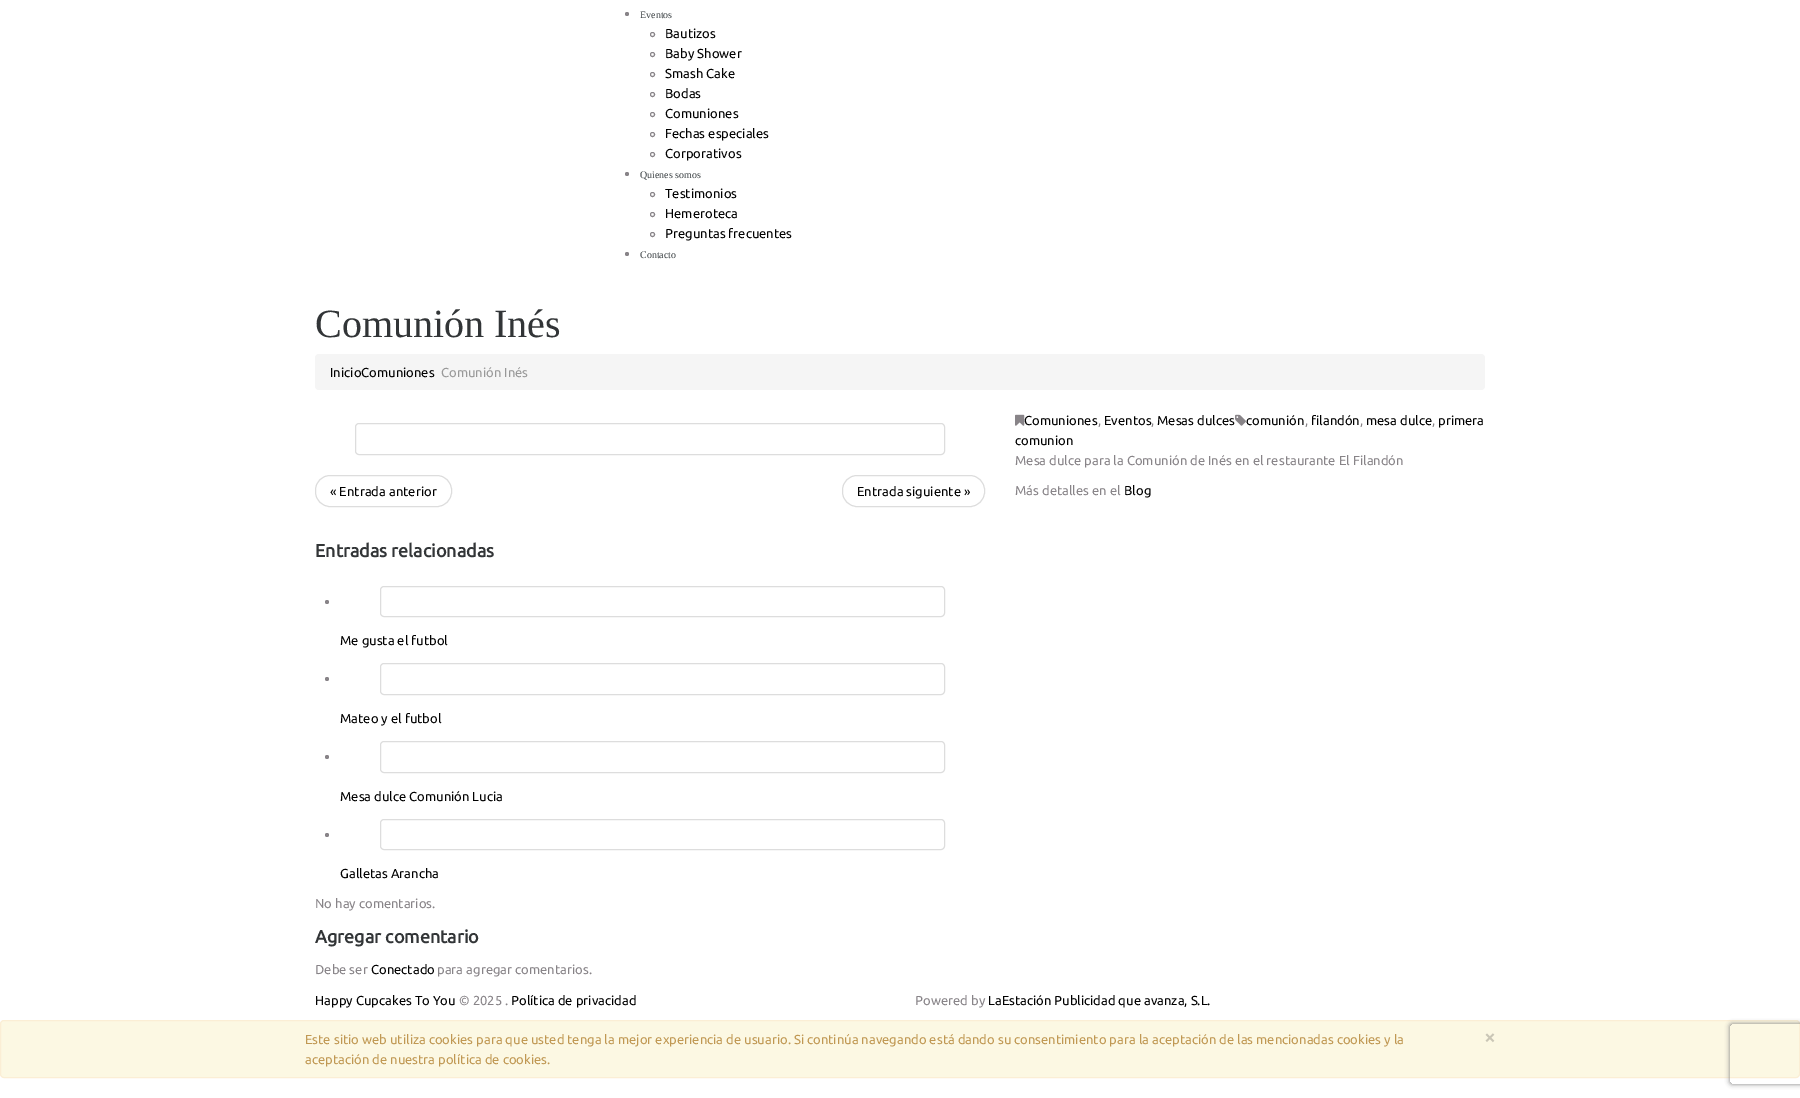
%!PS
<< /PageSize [1800 1098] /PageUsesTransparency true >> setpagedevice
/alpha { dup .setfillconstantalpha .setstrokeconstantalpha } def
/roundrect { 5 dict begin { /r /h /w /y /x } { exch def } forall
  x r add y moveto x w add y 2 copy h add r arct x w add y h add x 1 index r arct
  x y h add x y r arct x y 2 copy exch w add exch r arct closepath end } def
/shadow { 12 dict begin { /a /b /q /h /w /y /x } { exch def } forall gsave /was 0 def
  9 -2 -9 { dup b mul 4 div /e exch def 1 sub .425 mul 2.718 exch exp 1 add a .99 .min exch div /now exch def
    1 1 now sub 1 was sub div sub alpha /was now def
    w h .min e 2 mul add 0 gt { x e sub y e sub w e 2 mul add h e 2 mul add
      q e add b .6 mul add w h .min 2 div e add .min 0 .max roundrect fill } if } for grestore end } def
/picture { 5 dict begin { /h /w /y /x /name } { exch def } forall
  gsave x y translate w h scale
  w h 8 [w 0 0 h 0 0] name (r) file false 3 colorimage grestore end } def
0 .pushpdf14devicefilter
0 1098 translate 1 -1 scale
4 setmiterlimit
1 setgray
0 0 1800 1098 rectfill
0.533 0.518 0.533 setrgbcolor
newpath 627 14 2 0 360 arc closepath fill
/Tinos-Regular [10 0 0 -10 0 0] selectfont
0.212 0.235 0.247 setrgbcolor
640 18 moveto (Eventos) show
0.533 0.518 0.533 setrgbcolor
newpath 652.5 34.5 2 0 360 arc closepath stroke
/Ubuntu-Regular [13 0 0 -13 0 0] selectfont
0 setgray
665 38 moveto (Bautizos) show
0.533 0.518 0.533 setrgbcolor
newpath 652.5 54.5 2 0 360 arc closepath stroke
0 setgray
665 58 moveto (Baby Shower) show
0.533 0.518 0.533 setrgbcolor
newpath 652.5 74.5 2 0 360 arc closepath stroke
0 setgray
665 78 moveto (Smash Cake) show
0.533 0.518 0.533 setrgbcolor
newpath 652.5 94.5 2 0 360 arc closepath stroke
0 setgray
665 98 moveto (Bodas) show
0.533 0.518 0.533 setrgbcolor
newpath 652.5 114.5 2 0 360 arc closepath stroke
0 setgray
665 118 moveto (Comuniones) show
0.533 0.518 0.533 setrgbcolor
newpath 652.5 134.5 2 0 360 arc closepath stroke
0 setgray
665 138 moveto (Fechas especiales) show
0.533 0.518 0.533 setrgbcolor
newpath 652.5 154.5 2 0 360 arc closepath stroke
0 setgray
665 158 moveto (Corporativos) show
0.533 0.518 0.533 setrgbcolor
newpath 627 174 2 0 360 arc closepath fill
/Tinos-Regular [10 0 0 -10 0 0] selectfont
0.212 0.235 0.247 setrgbcolor
640 178 moveto (Quienes somos) show
0.533 0.518 0.533 setrgbcolor
newpath 652.5 194.5 2 0 360 arc closepath stroke
/Ubuntu-Regular [13 0 0 -13 0 0] selectfont
0 setgray
665 198 moveto (Testimonios) show
0.533 0.518 0.533 setrgbcolor
newpath 652.5 214.5 2 0 360 arc closepath stroke
0 setgray
665 218 moveto (Hemeroteca) show
0.533 0.518 0.533 setrgbcolor
newpath 652.5 234.5 2 0 360 arc closepath stroke
0 setgray
665 238 moveto (Preguntas frecuentes) show
0.533 0.518 0.533 setrgbcolor
newpath 627 254 2 0 360 arc closepath fill
/Tinos-Regular [10 0 0 -10 0 0] selectfont
0.212 0.235 0.247 setrgbcolor
640 258 moveto (Contacto) show
/Tinos-Regular [40 0 0 -40 0 0] selectfont
0.196 0.208 0.216 setrgbcolor
315 337 moveto (Comunión Inés) show
0.961 setgray
315 354 1170 36 4 roundrect fill
/Ubuntu-Regular [13 0 0 -13 0 0] selectfont
0 setgray
330 377 moveto (InicioComuniones) show
0.6 setgray
441 377 moveto (Comunión Inés) show
0.867 setgray
355.5 423.5 589 31 3.5 roundrect stroke
315.5 475.5 136 31 14.5 roundrect stroke
0 setgray
330 496 moveto (« Entrada anterior) show
0.867 setgray
842.5 475.5 142 31 14.5 roundrect stroke
0 setgray
857 496 moveto (Entrada siguiente ») show
(img1.rgb) 1235 414 11 12 picture
1246 425 moveto (comunión) show
0.533 0.518 0.533 setrgbcolor
1305 425 moveto (,) show
0 setgray
1311 425 moveto (filandón) show
0.533 0.518 0.533 setrgbcolor
1360 425 moveto (,) show
0 setgray
1366 425 moveto (mesa dulce) show
0.533 0.518 0.533 setrgbcolor
1432 425 moveto (,) show
0 setgray
1438 425 moveto (primera) show
1015 445 moveto (comunion) show
(img2.rgb) 1015 414 10 12 picture
1024 425 moveto (Comuniones) show
0.533 0.518 0.533 setrgbcolor
1098 425 moveto (,) show
0 setgray
1104 425 moveto (Eventos) show
0.533 0.518 0.533 setrgbcolor
1151 425 moveto (,) show
0 setgray
1157 425 moveto (Mesas dulces) show
0.533 0.518 0.533 setrgbcolor
1015 465 moveto (Mesa dulce para la Comunión de Inés en el restaurante El Filandón) show
1015 495 moveto (Más detalles en el) show
0 setgray
1124 495 moveto (Blog) show
/Ubuntu-Bold [18 0 0 -18 0 0] selectfont
0.196 0.208 0.216 setrgbcolor
315 557 moveto (Entradas relacionadas) show
0.533 0.518 0.533 setrgbcolor
newpath 327 602 2 0 360 arc closepath fill
0.867 setgray
380.5 586.5 564 30 3.5 roundrect stroke
/Ubuntu-Regular [13 0 0 -13 0 0] selectfont
0 setgray
340 645 moveto (Me gusta el futbol) show
0.533 0.518 0.533 setrgbcolor
newpath 327 679 2 0 360 arc closepath fill
0.867 setgray
380.5 663.5 564 31 3.5 roundrect stroke
0 setgray
340 723 moveto (Mateo y el futbol) show
0.533 0.518 0.533 setrgbcolor
newpath 327 757 2 0 360 arc closepath fill
0.867 setgray
380.5 741.5 564 31 3.5 roundrect stroke
0 setgray
340 801 moveto (Mesa dulce Comunión Lucia) show
0.533 0.518 0.533 setrgbcolor
newpath 327 835 2 0 360 arc closepath fill
0.867 setgray
380.5 819.5 564 30 3.5 roundrect stroke
0 setgray
340 878 moveto (Galletas Arancha) show
0.533 0.518 0.533 setrgbcolor
315 908 moveto (No hay comentarios.) show
/Ubuntu-Bold [18 0 0 -18 0 0] selectfont
0.196 0.208 0.216 setrgbcolor
315 943 moveto (Agregar comentario) show
/Ubuntu-Regular [13 0 0 -13 0 0] selectfont
0.533 0.518 0.533 setrgbcolor
315 974 moveto (Debe ser) show
0 setgray
371 974 moveto (Conectado) show
0.533 0.518 0.533 setrgbcolor
437 974 moveto (para agregar comentarios.) show
0 setgray
315 1005 moveto (Happy Cupcakes To You) show
0.533 0.518 0.533 setrgbcolor
459 1005 moveto (© 2025 .) show
0 setgray
511 1005 moveto (Política de privacidad) show
0.533 0.518 0.533 setrgbcolor
915 1005 moveto (Powered by) show
0 setgray
988 1005 moveto (LaEstación Publicidad que avanza, S.L.) show
0.988 0.973 0.89 setrgbcolor
0.5 1020.5 1799 57 3.5 roundrect gsave fill grestore
0.984 0.933 0.835 setrgbcolor
stroke
0.753 0.596 0.325 setrgbcolor
305 1044 moveto (Este sitio web utiliza cookies para que usted tenga la mejor experiencia de usuario. Si continúa navegando está dando su consentimiento para la aceptación de las mencionadas cookies y la) show
/Ubuntu-Bold [20 0 0 -20 0 0] selectfont
0.792 0.776 0.714 setrgbcolor
1484 1044 moveto (×) show
/Ubuntu-Regular [13 0 0 -13 0 0] selectfont
0.753 0.596 0.325 setrgbcolor
305 1064 moveto (aceptación de nuestra política de cookies.) show
gsave
newpath 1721 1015 moveto 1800 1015 lineto 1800 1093 lineto 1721 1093 lineto closepath 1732 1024 moveto 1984 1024 lineto 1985 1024 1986 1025 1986 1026 curveto 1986 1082 lineto 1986 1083 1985 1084 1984 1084 curveto 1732 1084 lineto 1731 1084 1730 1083 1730 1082 curveto 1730 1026 lineto 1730 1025 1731 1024 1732 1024 curveto closepath eoclip newpath
0.502 setgray
1730 1024 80 60 2 2.5 1 shadow
grestore
.poppdf14devicefilter showpage
